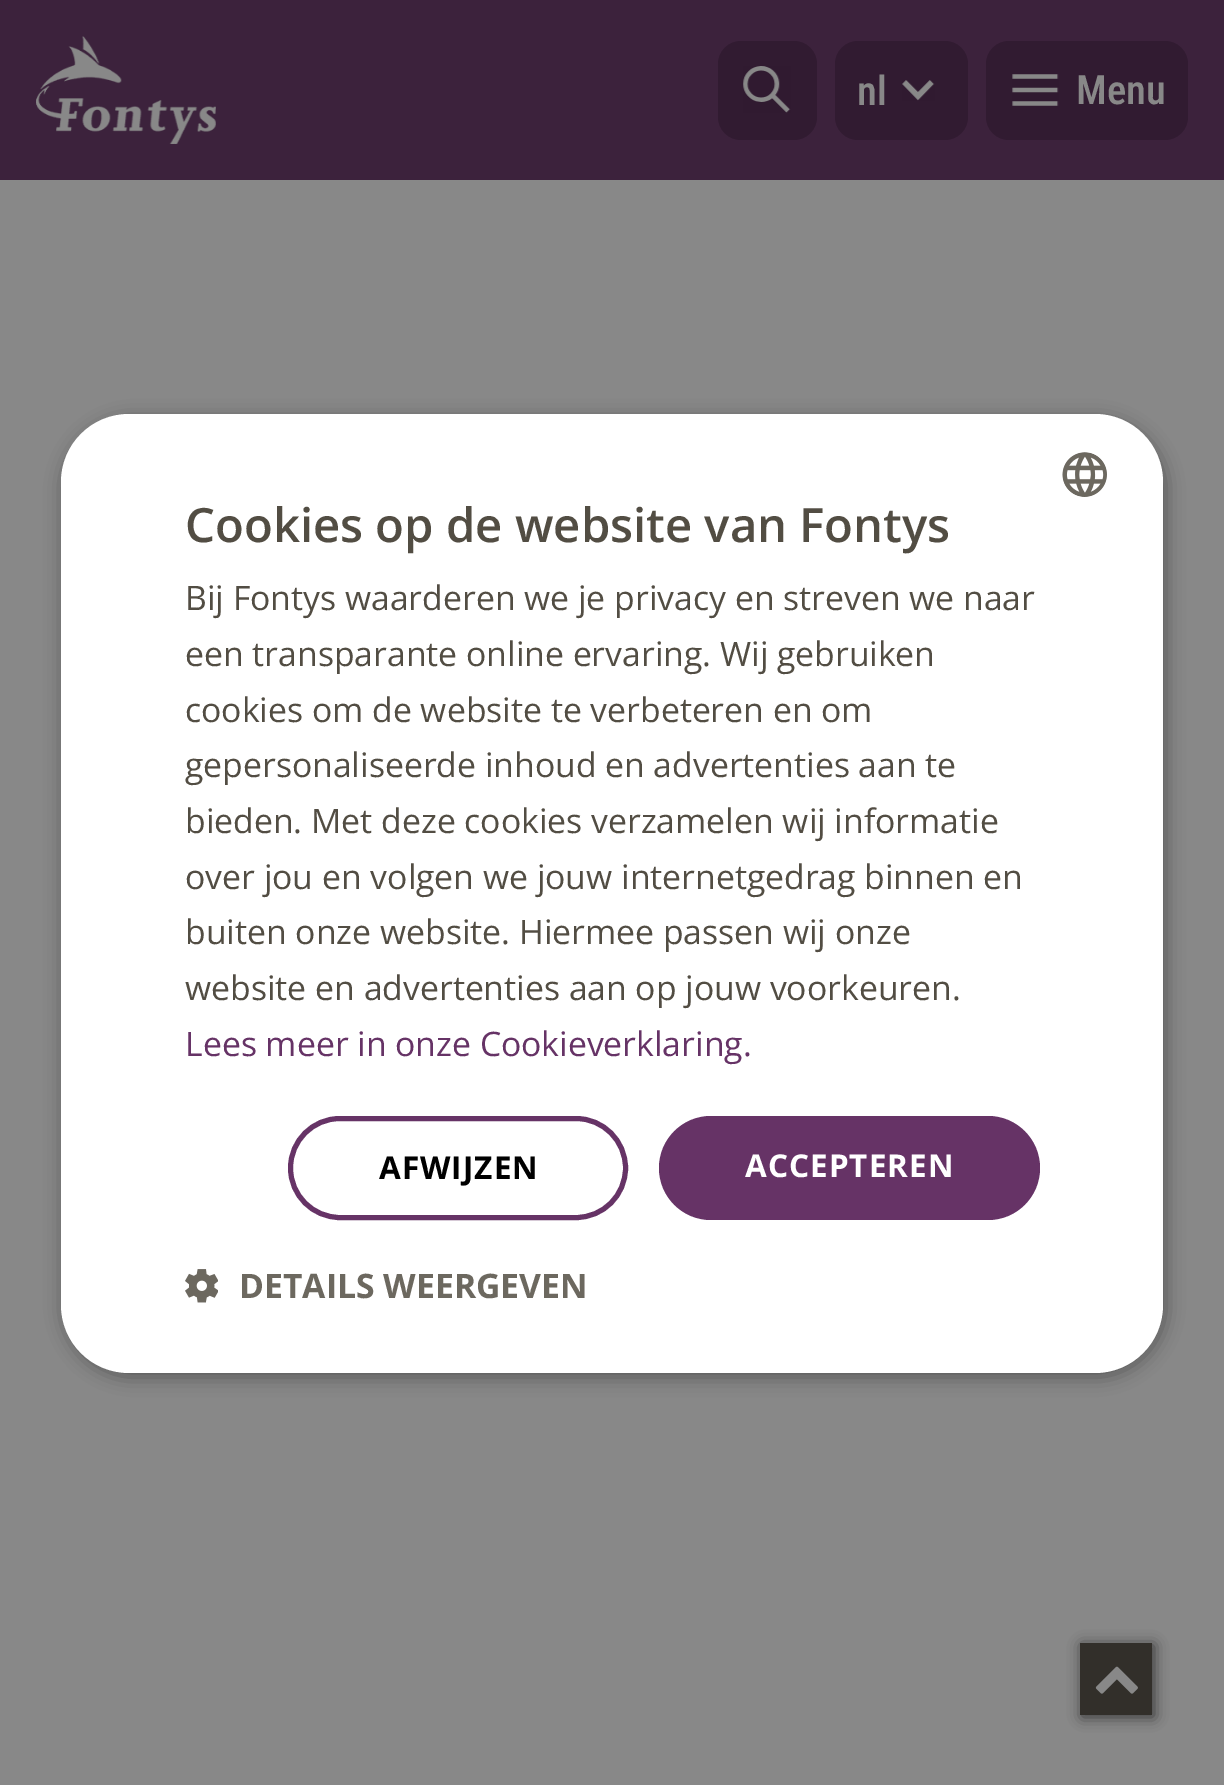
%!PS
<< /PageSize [1224 1785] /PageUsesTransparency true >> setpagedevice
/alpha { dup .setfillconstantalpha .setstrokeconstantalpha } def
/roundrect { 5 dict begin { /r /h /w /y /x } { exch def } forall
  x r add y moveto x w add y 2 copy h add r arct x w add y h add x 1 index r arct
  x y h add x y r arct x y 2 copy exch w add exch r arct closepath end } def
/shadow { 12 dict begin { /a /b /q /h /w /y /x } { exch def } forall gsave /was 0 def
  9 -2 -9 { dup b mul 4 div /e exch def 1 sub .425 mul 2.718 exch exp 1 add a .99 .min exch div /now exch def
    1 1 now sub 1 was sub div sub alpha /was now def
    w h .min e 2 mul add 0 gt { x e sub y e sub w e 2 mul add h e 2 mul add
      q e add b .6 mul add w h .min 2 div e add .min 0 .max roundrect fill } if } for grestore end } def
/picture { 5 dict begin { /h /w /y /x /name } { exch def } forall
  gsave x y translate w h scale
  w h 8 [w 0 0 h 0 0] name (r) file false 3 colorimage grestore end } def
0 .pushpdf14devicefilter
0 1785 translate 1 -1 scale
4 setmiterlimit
0.533 setgray
0 0 1224 1785 rectfill
0.235 0.133 0.235 setrgbcolor
0 0 1224 180 rectfill
(img1.rgb) 36 36 180 108 picture
0.192 0.106 0.192 setrgbcolor
718 41 99 99 23 roundrect fill
(img2.rgb) 743 66 48 47 picture
835 41 133 99 23 roundrect fill
/RobotoCondensed-Medium [40.5 0 0 -40.5 0 0] selectfont
0.533 setgray
857 105 moveto (nl) show
(img3.rgb) 902 80 33 21 picture
0.192 0.106 0.192 setrgbcolor
986 41 202 99 23 roundrect fill
(img4.rgb) 1012 74 47 32 picture
0.533 setgray
1076 104 moveto (Menu) show
0 setgray
63 419 1103 958 68 9 0.35 shadow
1 setgray
61 414 1102 959 68 roundrect fill
(img5.rgb) 1062 452 45 45 picture
/OpenSans-SemiBold [47.25 0 0 -47.25 0 0] selectfont
0.322 0.302 0.263 setrgbcolor
185 542 moveto (Cookies op de website van Fontys) show
/OpenSans-Regular [33.75 0 0 -33.75 0 0] selectfont
185 610 moveto (Bij Fontys waarderen we je privacy en streven we naar) show
185 666 moveto (een transparante online ervaring. Wij gebruiken) show
185 722 moveto (cookies om de website te verbeteren en om) show
185 777 moveto (gepersonaliseerde inhoud en advertenties aan te) show
185 833 moveto (bieden. Met deze cookies verzamelen wij informatie) show
185 889 moveto (over jou en volgen we jouw internetgedrag binnen en) show
185 944 moveto (buiten onze website. Hiermee passen wij onze) show
185 1000 moveto (website en advertenties aan op jouw voorkeuren.) show
0.4 0.2 0.4 setrgbcolor
185 1056 moveto (Lees meer in onze Cookieverklaring.) show
5 setlinewidth
290.5 1118.5 335 99 49.5 roundrect stroke
/OpenSans-Bold [31.5 0 0 -31.5 0 0] selectfont
0 setgray
379 1179 moveto 1 0 (AFWIJZEN) ashow
0.4 0.2 0.4 setrgbcolor
659 1116 381 104 52 roundrect fill
1 setgray
745 1177 moveto 1 0 (ACCEPTEREN) ashow
(img6.rgb) 185 1269 33 34 picture
/OpenSans-Bold [33.75 0 0 -33.75 0 0] selectfont
0.424 0.408 0.373 setrgbcolor
239 1298 moveto (DETAILS WEERGEVEN) show
0.2 setgray
1082 1645 72 72 0 7 1 shadow
0.196 0.184 0.165 setrgbcolor
1080 1643 72 72 rectfill
(img7.rgb) 1095 1666 43 28 picture
.poppdf14devicefilter showpage
